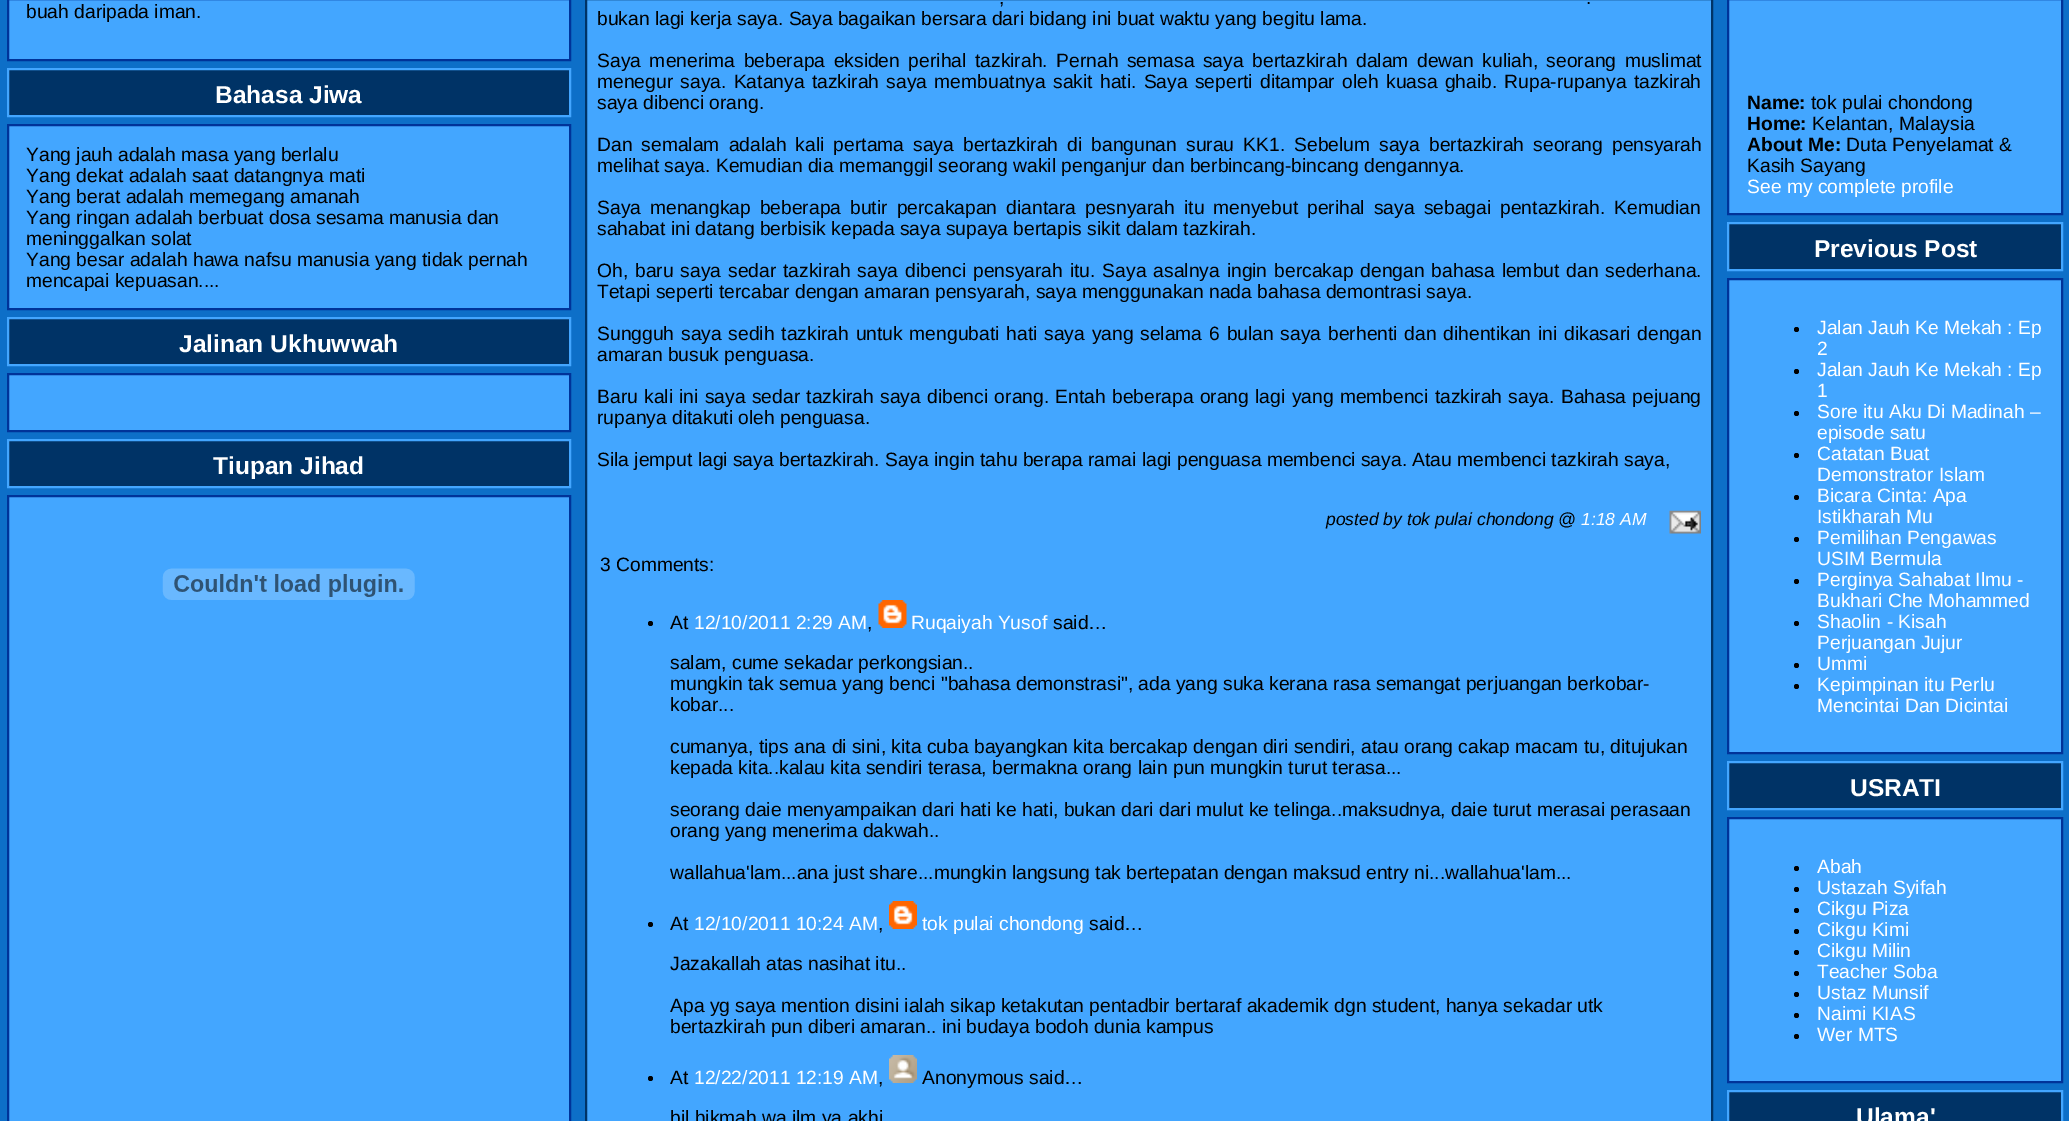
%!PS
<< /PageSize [2069 1121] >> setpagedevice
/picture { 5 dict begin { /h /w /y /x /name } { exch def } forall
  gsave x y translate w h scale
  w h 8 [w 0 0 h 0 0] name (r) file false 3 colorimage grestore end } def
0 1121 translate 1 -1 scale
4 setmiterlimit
0.051 0.435 0.784 setrgbcolor
0 0 2069 1121 rectfill
0.263 0.651 1 setrgbcolor
newpath 8 -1 moveto 570 -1 lineto 570 60 lineto 8 60 lineto closepath gsave fill grestore
0 0.2 0.6 setrgbcolor
2 setlinewidth
stroke
/LiberationSans-Regular [19.25 0 0 -19.25 0 0] selectfont
0 setgray
26 18 moveto (buah daripada iman.) show
0 0.2 0.4 setrgbcolor
newpath 8 69 moveto 570 69 lineto 570 116 lineto 8 116 lineto closepath gsave fill grestore
0.263 0.651 1 setrgbcolor
stroke
/LiberationSans-Bold [24.5 0 0 -24.5 0 0] selectfont
1 setgray
215 103 moveto (Bahasa Jiwa) show
0.263 0.651 1 setrgbcolor
newpath 8 125 moveto 570 125 lineto 570 309 lineto 8 309 lineto closepath gsave fill grestore
0 0.2 0.6 setrgbcolor
stroke
/LiberationSans-Regular [19.25 0 0 -19.25 0 0] selectfont
0 setgray
26 161 moveto (Yang jauh adalah masa yang berlalu) show
26 182 moveto (Yang dekat adalah saat datangnya mati) show
26 203 moveto (Yang berat adalah memegang amanah) show
26 224 moveto (Yang ringan adalah berbuat dosa sesama manusia dan) show
26 245 moveto (meninggalkan solat) show
26 266 moveto (Yang besar adalah hawa nafsu manusia yang tidak pernah) show
26 287 moveto (mencapai kepuasan....) show
0 0.2 0.4 setrgbcolor
newpath 8 318 moveto 570 318 lineto 570 365 lineto 8 365 lineto closepath gsave fill grestore
0.263 0.651 1 setrgbcolor
stroke
/LiberationSans-Bold [24.5 0 0 -24.5 0 0] selectfont
1 setgray
179 352 moveto (Jalinan Ukhuwwah) show
0.263 0.651 1 setrgbcolor
newpath 8 374 moveto 570 374 lineto 570 431 lineto 8 431 lineto closepath gsave fill grestore
0 0.2 0.6 setrgbcolor
stroke
0 0.2 0.4 setrgbcolor
newpath 8 440 moveto 570 440 lineto 570 487 lineto 8 487 lineto closepath gsave fill grestore
0.263 0.651 1 setrgbcolor
stroke
1 setgray
213 474 moveto (Tiupan Jihad) show
0.263 0.651 1 setrgbcolor
newpath 8 496 moveto 570 496 lineto 570 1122 lineto 8 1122 lineto closepath gsave fill grestore
0 0.2 0.6 setrgbcolor
stroke
(img1.rgb) 162 568 253 32 picture
0.263 0.651 1 setrgbcolor
newpath 586 -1 moveto 1712 -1 lineto 1712 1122 lineto 586 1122 lineto closepath gsave fill grestore
0 0.2 0.4 setrgbcolor
stroke
/LiberationSans-Regular [19.25 0 0 -19.25 0 0] selectfont
0 setgray
999 4 moveto 2 0 32 (,) widthshow
1586 4 moveto 2 0 32 (.) widthshow
597 25 moveto (bukan lagi kerja saya. Saya bagaikan bersara dari bidang ini buat waktu yang begitu lama.) show
597 67 moveto 3.25 0 32 (Saya menerima beberapa eksiden perihal tazkirah. Pernah semasa saya bertazkirah dalam dewan kuliah, seorang muslimat) widthshow
597 88 moveto 2 0 32 (menegur saya. Katanya tazkirah saya membuatnya sakit hati. Saya seperti ditampar oleh kuasa ghaib. Rupa-rupanya tazkirah) widthshow
597 109 moveto (saya dibenci orang.) show
597 151 moveto 3.75 0 32 (Dan semalam adalah kali pertama saya bertazkirah di bangunan surau KK1. Sebelum saya bertazkirah seorang pensyarah) widthshow
597 172 moveto (melihat saya. Kemudian dia memanggil seorang wakil penganjur dan berbincang-bincang dengannya.) show
597 214 moveto 3.75 0 32 (Saya menangkap beberapa butir percakapan diantara pesnyarah itu menyebut perihal saya sebagai pentazkirah. Kemudian) widthshow
597 235 moveto (sahabat ini datang berbisik kepada saya supaya bertapis sikit dalam tazkirah.) show
597 277 moveto 1.6 0 32 (Oh, baru saya sedar tazkirah saya dibenci pensyarah itu. Saya asalnya ingin bercakap dengan bahasa lembut dan sederhana.) widthshow
597 298 moveto (Tetapi seperti tercabar dengan amaran pensyarah, saya menggunakan nada bahasa demontrasi saya.) show
597 340 moveto 1.5 0 32 (Sungguh saya sedih tazkirah untuk mengubati hati saya yang selama 6 bulan saya berhenti dan dihentikan ini dikasari dengan) widthshow
597 361 moveto (amaran busuk penguasa.) show
597 403 moveto 1 0 32 (Baru kali ini saya sedar tazkirah saya dibenci orang. Entah beberapa orang lagi yang membenci tazkirah saya. Bahasa pejuang) widthshow
597 424 moveto (rupanya ditakuti oleh penguasa.) show
597 466 moveto (Sila jemput lagi saya bertazkirah. Saya ingin tahu berapa ramai lagi penguasa membenci saya. Atau membenci tazkirah saya,) show
/LiberationSans-Italic [17.5 0 0 -17.5 0 0] selectfont
1326 525 moveto (posted by tok pulai chondong @) show
1 setgray
1581 525 moveto (1:18 AM) show
(img2.rgb) 1669 510 32 24 picture
/LiberationSans-Regular [19.25 0 0 -19.25 0 0] selectfont
0 setgray
600 571 moveto (3 Comments:) show
newpath 650.5 623.5 2.5 0 360 arc closepath fill
670 629 moveto (At) show
1 setgray
694 629 moveto (12/10/2011 2:29 AM) show
0 setgray
867 629 moveto (,) show
(img3.rgb) 878 600 29 28 picture
1 setgray
911 629 moveto (Ruqaiyah Yusof) show
0 setgray
1053 629 moveto (said…) show
670 669 moveto (salam, cume sekadar perkongsian..) show
670 690 moveto (mungkin tak semua yang benci "bahasa demonstrasi", ada yang suka kerana rasa semangat perjuangan berkobar-) show
670 711 moveto (kobar...) show
670 753 moveto (cumanya, tips ana di sini, kita cuba bayangkan kita bercakap dengan diri sendiri, atau orang cakap macam tu, ditujukan) show
670 774 moveto (kepada kita..kalau kita sendiri terasa, bermakna orang lain pun mungkin turut terasa...) show
670 816 moveto (seorang daie menyampaikan dari hati ke hati, bukan dari dari mulut ke telinga..maksudnya, daie turut merasai perasaan) show
670 837 moveto (orang yang menerima dakwah..) show
670 879 moveto (wallahua'lam...ana just share...mungkin langsung tak bertepatan dengan maksud entry ni...wallahua'lam...) show
newpath 650.5 924.5 2.5 0 360 arc closepath fill
670 930 moveto (At) show
1 setgray
694 930 moveto (12/10/2011 10:24 AM) show
0 setgray
878 930 moveto (,) show
(img4.rgb) 889 901 28 28 picture
1 setgray
922 930 moveto (tok pulai chondong) show
0 setgray
1089 930 moveto (said…) show
670 970 moveto (Jazakallah atas nasihat itu..) show
670 1012 moveto (Apa yg saya mention disini ialah sikap ketakutan pentadbir bertaraf akademik dgn student, hanya sekadar utk) show
670 1033 moveto (bertazkirah pun diberi amaran.. ini budaya bodoh dunia kampus) show
newpath 650.5 1078.5 2.5 0 360 arc closepath fill
670 1084 moveto (At) show
1 setgray
694 1084 moveto (12/22/2011 12:19 AM) show
0 setgray
878 1084 moveto (,) show
(img5.rgb) 889 1055 28 28 picture
922 1084 moveto (Anonymous said…) show
670 1124 moveto (bil hikmah wa ilm ya akhi) show
0.263 0.651 1 setrgbcolor
newpath 1728 -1 moveto 2062 -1 lineto 2062 214 lineto 1728 214 lineto closepath gsave fill grestore
0 0.2 0.6 setrgbcolor
stroke
/LiberationSans-Bold [19.25 0 0 -19.25 0 0] selectfont
0 setgray
1747 109 moveto (Name:) show
/LiberationSans-Regular [19.25 0 0 -19.25 0 0] selectfont
1811 109 moveto (tok pulai chondong) show
/LiberationSans-Bold [19.25 0 0 -19.25 0 0] selectfont
1747 130 moveto (Home:) show
/LiberationSans-Regular [19.25 0 0 -19.25 0 0] selectfont
1812 130 moveto (Kelantan, Malaysia) show
/LiberationSans-Bold [19.25 0 0 -19.25 0 0] selectfont
1747 151 moveto (About Me:) show
/LiberationSans-Regular [19.25 0 0 -19.25 0 0] selectfont
1846 151 moveto (Duta Penyelamat &) show
1747 172 moveto (Kasih Sayang) show
1 setgray
1747 193 moveto (See my complete profile) show
0 0.2 0.4 setrgbcolor
newpath 1728 223 moveto 2062 223 lineto 2062 270 lineto 1728 270 lineto closepath gsave fill grestore
0.263 0.651 1 setrgbcolor
stroke
/LiberationSans-Bold [24.5 0 0 -24.5 0 0] selectfont
1 setgray
1814 257 moveto (Previous Post) show
0.263 0.651 1 setrgbcolor
newpath 1728 279 moveto 2062 279 lineto 2062 753 lineto 1728 753 lineto closepath gsave fill grestore
0 0.2 0.6 setrgbcolor
stroke
0 setgray
newpath 1796.5 329.5 2.5 0 360 arc closepath fill
/LiberationSans-Regular [19.25 0 0 -19.25 0 0] selectfont
1 setgray
1817 334 moveto (Jalan Jauh Ke Mekah : Ep) show
1817 355 moveto (2) show
0 setgray
newpath 1796.5 371.5 2.5 0 360 arc closepath fill
1 setgray
1817 376 moveto (Jalan Jauh Ke Mekah : Ep) show
1817 397 moveto (1) show
0 setgray
newpath 1796.5 413.5 2.5 0 360 arc closepath fill
1 setgray
1817 418 moveto (Sore itu Aku Di Madinah –) show
1817 439 moveto (episode satu) show
0 setgray
newpath 1796.5 455.5 2.5 0 360 arc closepath fill
1 setgray
1817 460 moveto (Catatan Buat) show
1817 481 moveto (Demonstrator Islam) show
0 setgray
newpath 1796.5 497.5 2.5 0 360 arc closepath fill
1 setgray
1817 502 moveto (Bicara Cinta: Apa) show
1817 523 moveto (Istikharah Mu) show
0 setgray
newpath 1796.5 539.5 2.5 0 360 arc closepath fill
1 setgray
1817 544 moveto (Pemilihan Pengawas) show
1817 565 moveto (USIM Bermula) show
0 setgray
newpath 1796.5 581.5 2.5 0 360 arc closepath fill
1 setgray
1817 586 moveto (Perginya Sahabat Ilmu -) show
1817 607 moveto (Bukhari Che Mohammed) show
0 setgray
newpath 1796.5 623.5 2.5 0 360 arc closepath fill
1 setgray
1817 628 moveto (Shaolin - Kisah) show
1817 649 moveto (Perjuangan Jujur) show
0 setgray
newpath 1796.5 665.5 2.5 0 360 arc closepath fill
1 setgray
1817 670 moveto (Ummi) show
0 setgray
newpath 1796.5 686.5 2.5 0 360 arc closepath fill
1 setgray
1817 691 moveto (Kepimpinan itu Perlu) show
1817 712 moveto (Mencintai Dan Dicintai) show
0 0.2 0.4 setrgbcolor
newpath 1728 762 moveto 2062 762 lineto 2062 809 lineto 1728 809 lineto closepath gsave fill grestore
0.263 0.651 1 setrgbcolor
stroke
/LiberationSans-Bold [24.5 0 0 -24.5 0 0] selectfont
1 setgray
1850 796 moveto (USRATI) show
0.263 0.651 1 setrgbcolor
newpath 1728 818 moveto 2062 818 lineto 2062 1082 lineto 1728 1082 lineto closepath gsave fill grestore
0 0.2 0.6 setrgbcolor
stroke
0 setgray
newpath 1796.5 868.5 2.5 0 360 arc closepath fill
/LiberationSans-Regular [19.25 0 0 -19.25 0 0] selectfont
1 setgray
1817 873 moveto (Abah) show
0 setgray
newpath 1796.5 889.5 2.5 0 360 arc closepath fill
1 setgray
1817 894 moveto (Ustazah Syifah) show
0 setgray
newpath 1796.5 910.5 2.5 0 360 arc closepath fill
1 setgray
1817 915 moveto (Cikgu Piza) show
0 setgray
newpath 1796.5 931.5 2.5 0 360 arc closepath fill
1 setgray
1817 936 moveto (Cikgu Kimi) show
0 setgray
newpath 1796.5 952.5 2.5 0 360 arc closepath fill
1 setgray
1817 957 moveto (Cikgu Milin) show
0 setgray
newpath 1796.5 973.5 2.5 0 360 arc closepath fill
1 setgray
1817 978 moveto (Teacher Soba) show
0 setgray
newpath 1796.5 994.5 2.5 0 360 arc closepath fill
1 setgray
1817 999 moveto (Ustaz Munsif) show
0 setgray
newpath 1796.5 1015.5 2.5 0 360 arc closepath fill
1 setgray
1817 1020 moveto (Naimi KIAS) show
0 setgray
newpath 1796.5 1036.5 2.5 0 360 arc closepath fill
1 setgray
1817 1041 moveto (Wer MTS) show
0 0.2 0.4 setrgbcolor
newpath 1728 1091 moveto 2062 1091 lineto 2062 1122 lineto 1728 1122 lineto closepath gsave fill grestore
0.263 0.651 1 setrgbcolor
stroke
/LiberationSans-Bold [24.5 0 0 -24.5 0 0] selectfont
1 setgray
1856 1125 moveto (Ulama') show
showpage
